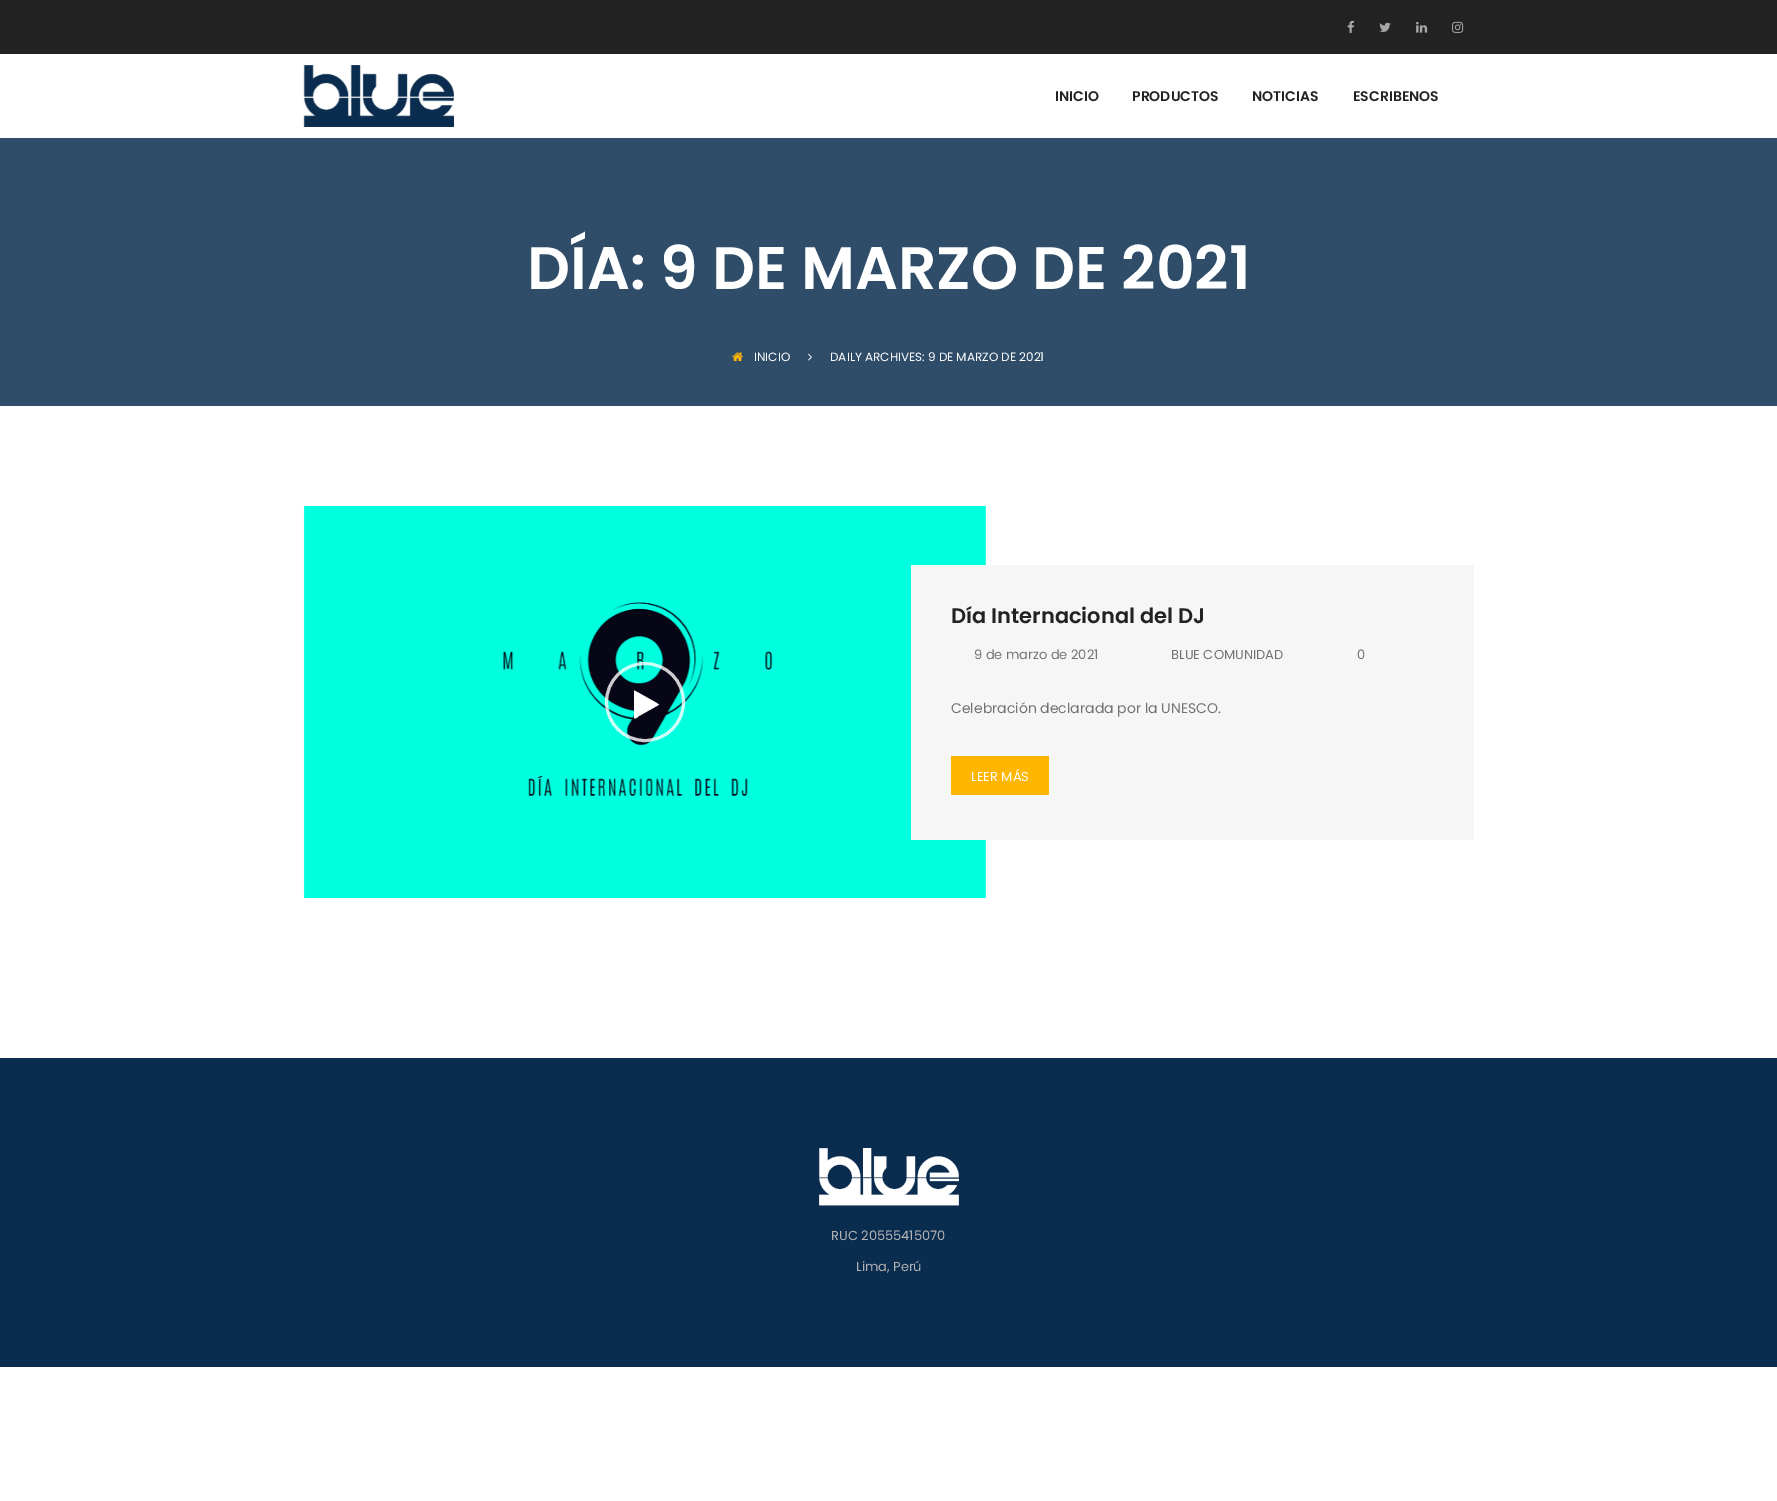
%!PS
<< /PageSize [1777 1501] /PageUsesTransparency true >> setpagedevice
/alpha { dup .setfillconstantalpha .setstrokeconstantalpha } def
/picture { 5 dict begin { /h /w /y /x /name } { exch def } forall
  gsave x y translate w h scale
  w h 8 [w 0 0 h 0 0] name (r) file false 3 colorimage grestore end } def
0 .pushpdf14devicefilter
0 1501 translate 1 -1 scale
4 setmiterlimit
1 setgray
0 0 1777 1501 rectfill
0.133 setgray
0 0 1777 54 rectfill
(img1.rgb) 1347 20 7 13 picture
(img2.rgb) 1379 22 12 10 picture
(img3.rgb) 1416 22 12 11 picture
(img4.rgb) 1452 21 12 12 picture
(img5.rgb) 303 65 151 62 picture
/Poppins-SemiBold [14 0 0 -14 0 0] selectfont
1055 101 moveto (INICIO) show
1132 101 moveto (PRODUCTOS) show
1252 101 moveto (NOTICIAS) show
1353 101 moveto (ESCRIBENOS) show
0.184 0.298 0.412 setrgbcolor
0 138 1777 268 rectfill
/Poppins-SemiBold [60 0 0 -60 0 0] selectfont
1 setgray
527 289 moveto (DÍA: 9 DE MARZO DE 2021) show
(img6.rgb) 732 352 11 9 picture
/Poppins-Regular [12 0 0 -12 0 0] selectfont
754 361 moveto (INICIO) show
(img7.rgb) 808 353 4 8 picture
830 361 moveto (DAILY ARCHIVES: 9 DE MARZO DE 2021) show
(img8.rgb) 303 506 683 392 picture
0.8 alpha
3 setlinewidth
newpath 645 702 38.5 0 360 arc closepath stroke
1 alpha
newpath 658.5 705 moveto 639 716 lineto 638.5 716.5 635 719.5 634 718 curveto 634 691 lineto 634.5 690.5 lineto 655 702 lineto 659 704.5 lineto closepath fill
0.965 setgray
911 565 563 275 rectfill
/Poppins-SemiBold [21 0 0 -21 0 0] selectfont
0.133 setgray
951 623 moveto (Día Internacional del DJ) show
/Poppins-Regular [13 0 0 -13 0 0] selectfont
0.447 setgray
974 659 moveto (9 de marzo de 2021) show
1171 659 moveto (BLUE COMUNIDAD) show
1357 659 moveto (0) show
/Poppins-Regular [14 0 0 -14 0 0] selectfont
951 713 moveto (Celebración declarada por la UNESCO.) show
1 0.714 0 setrgbcolor
951 756 98 39 rectfill
/Poppins-Regular [13 0 0 -13 0 0] selectfont
1 setgray
971 781 moveto (LEER MÁS) show
0.039 0.173 0.306 setrgbcolor
0 1058 1777 309 rectfill
(img9.rgb) 819 1148 140 58 picture
0.698 setgray
831 1240 moveto (RUC 20555415070) show
856 1271 moveto (Lima, Perú) show
.poppdf14devicefilter showpage
